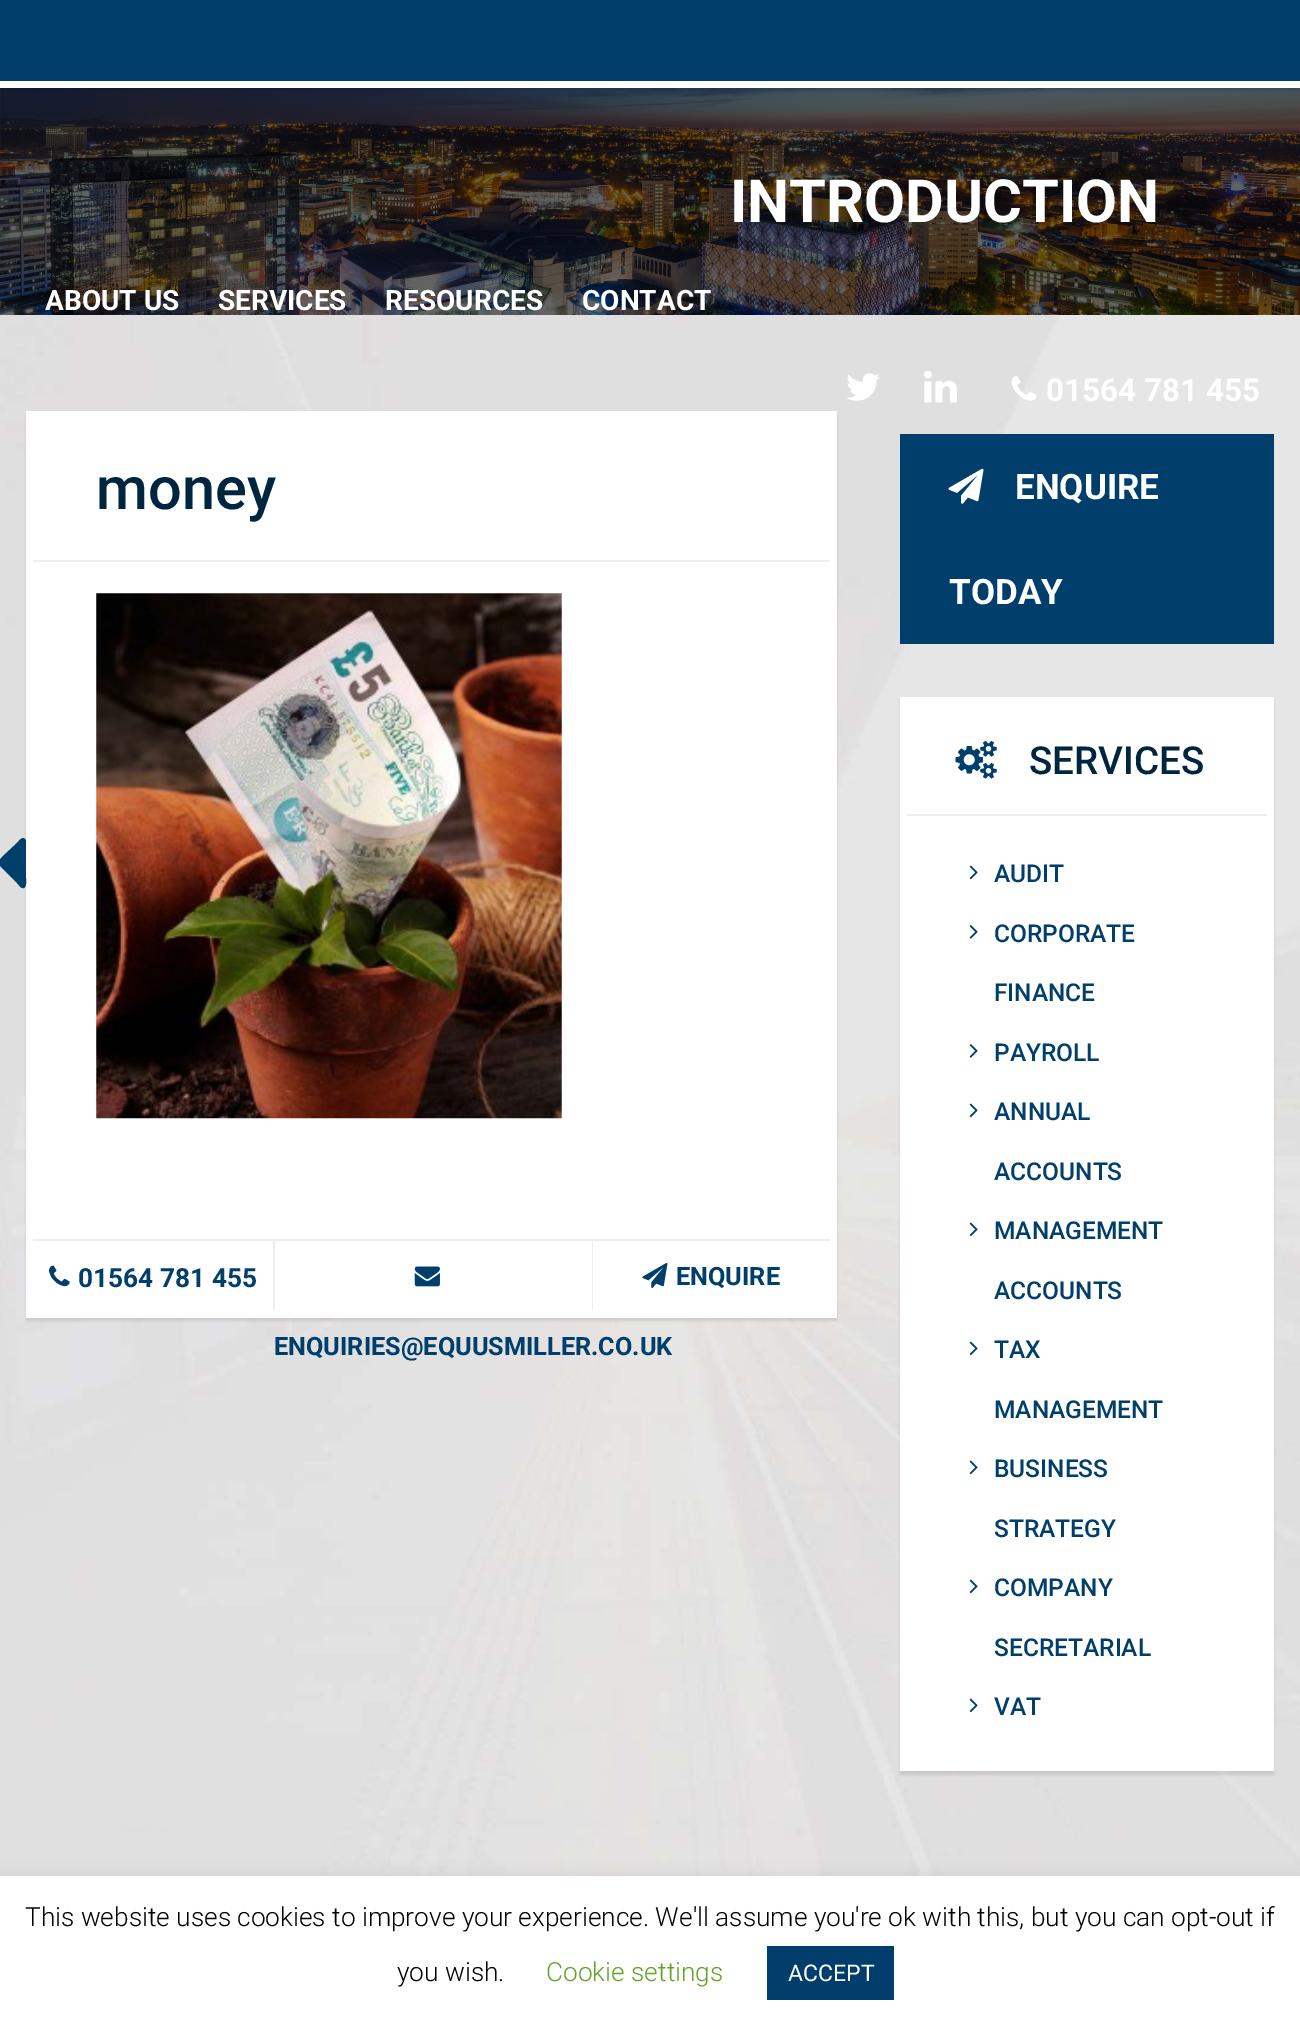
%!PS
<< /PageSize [1300 2029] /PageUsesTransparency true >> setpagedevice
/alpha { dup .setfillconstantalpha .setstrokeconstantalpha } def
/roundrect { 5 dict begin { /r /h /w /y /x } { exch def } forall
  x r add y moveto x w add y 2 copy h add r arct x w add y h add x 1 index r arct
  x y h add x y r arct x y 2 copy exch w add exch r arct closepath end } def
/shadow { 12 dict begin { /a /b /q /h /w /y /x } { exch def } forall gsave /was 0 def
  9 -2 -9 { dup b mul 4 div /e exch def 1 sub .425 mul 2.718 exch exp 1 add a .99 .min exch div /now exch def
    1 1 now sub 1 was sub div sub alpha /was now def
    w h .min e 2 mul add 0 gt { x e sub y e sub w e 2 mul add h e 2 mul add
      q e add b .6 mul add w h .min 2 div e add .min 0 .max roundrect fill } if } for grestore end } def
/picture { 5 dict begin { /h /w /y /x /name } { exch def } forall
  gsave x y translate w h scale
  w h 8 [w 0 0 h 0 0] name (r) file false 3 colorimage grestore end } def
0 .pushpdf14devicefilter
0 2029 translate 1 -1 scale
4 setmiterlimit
1 setgray
0 0 1300 2029 rectfill
(img1.rgb) 0 88 1300 227 picture
/Roboto-Bold [59.5 0 0 -59.5 0 0] selectfont
730 222 moveto (INTRODUCTION) show
0 setgray
0 4 1300 87 0 1 0.1 shadow
0.004 0.243 0.42 setrgbcolor
0 0 1300 81 rectfill
1 setgray
0 81 1300 7 rectfill
/Roboto-Bold [28 0 0 -28 0 0] selectfont
45 310 moveto (ABOUT US) show
218 310 moveto (SERVICES) show
385 310 moveto (RESOURCES) show
582 310 moveto (CONTACT) show
(img13.rgb) 0 315 1300 1561 picture
(img2.rgb) 846 373 34 28 picture
(img3.rgb) 924 371 33 32 picture
(img4.rgb) 1011 376 26 25 picture
/Roboto-Bold [31.5 0 0 -31.5 0 0] selectfont
1046 401 moveto (01564 781 455) show
0 setgray
26 415 811 906 0 1 0.1 shadow
1 setgray
26 411 811 907 rectfill
0.933 setgray
33 560 797 2 rectfill
/Roboto-Medium [59.5 0 0 -59.5 0 0] selectfont
0 0.145 0.247 setrgbcolor
96 509 moveto (money) show
0 0.243 0.42 setrgbcolor
newpath 26 841 moveto 26 878 lineto 26 879 27 886 24 888 curveto 21 889 19 885 17 883 curveto -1 865 lineto -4 862 1 859 2 857 curveto 17 843 lineto 19 841 22 836 25 839 curveto 25 839 26 840 26 841 curveto closepath fill
(img5.rgb) 96 593 466 526 picture
0.933 setgray
33 1239 797 2 rectfill
(img6.rgb) 49 1265 21 22 picture
/Roboto-Bold [26.25 0 0 -26.25 0 0] selectfont
0 0.243 0.42 setrgbcolor
78 1287 moveto (01564 781 455) show
0.933 setgray
newpath 592 1311 moveto 592 1241 lineto 593 1242 lineto 593 1309 lineto closepath fill
(img7.rgb) 642 1262 26 27 picture
/Roboto-Bold [25.25 0 0 -25.25 0 0] selectfont
0 0.243 0.42 setrgbcolor
676 1285 moveto (ENQUIRE) show
0.933 setgray
newpath 273 1311 moveto 273 1241 lineto 275 1242 lineto 275 1309 lineto closepath fill
(img8.rgb) 414 1266 26 21 picture
0 0.243 0.42 setrgbcolor
274 1355 moveto (ENQUIRIES@EQUUSMILLER.CO.UK) show
900 434 374 210 rectfill
(img9.rgb) 948 468 36 36 picture
/Roboto-Bold [35 0 0 -35 0 0] selectfont
1 setgray
1015 499 moveto (ENQUIRE) show
949 604 moveto (TODAY) show
0 setgray
900 700 374 1075 0 1 0.1 shadow
1 setgray
900 697 374 1074 rectfill
0.933 setgray
907 814 360 2 rectfill
(img10.rgb) 955 740 42 39 picture
/Roboto-Medium [38.5 0 0 -38.5 0 0] selectfont
0 0.145 0.247 setrgbcolor
1029 774 moveto (SERVICES) show
(img11.rgb) 969 865 9 15 picture
/Roboto-Medium [24.5 0 0 -24.5 0 0] selectfont
0 0.243 0.42 setrgbcolor
994 882 moveto (AUDIT) show
(img12.rgb) 969 925 9 14 picture
994 942 moveto (CORPORATE) show
994 1001 moveto (FINANCE) show
(img12.rgb) 969 1044 9 14 picture
994 1061 moveto (PAYROLL) show
(img11.rgb) 969 1103 9 15 picture
994 1120 moveto (ANNUAL) show
994 1180 moveto (ACCOUNTS) show
(img11.rgb) 969 1222 9 15 picture
994 1239 moveto (MANAGEMENT) show
994 1299 moveto (ACCOUNTS) show
(img11.rgb) 969 1341 9 15 picture
994 1358 moveto (TAX) show
994 1418 moveto (MANAGEMENT) show
(img11.rgb) 969 1460 9 15 picture
994 1477 moveto (BUSINESS) show
994 1537 moveto (STRATEGY) show
(img11.rgb) 969 1579 9 15 picture
994 1596 moveto (COMPANY) show
994 1656 moveto (SECRETARIAL) show
(img11.rgb) 969 1698 9 15 picture
994 1715 moveto (VAT) show
0.675 0.671 0.671 setrgbcolor
0 1874 1300 154 0 9 0.3 shadow
1 setgray
0 1876 1300 153 rectfill
/Roboto-Light [26.25 0 0 -26.25 0 0] selectfont
0 setgray
25 1926 moveto (This website uses cookies to improve your experience. We'll assume you're ok with this, but you can opt-out if) show
397 1981 moveto (you wish.) show
0.384 0.639 0.161 setrgbcolor
546 1981 moveto (Cookie settings) show
0.004 0.243 0.42 setrgbcolor
767 1946 127 54 rectfill
/Roboto-Regular [23 0 0 -23 0 0] selectfont
1 setgray
788 1981 moveto (ACCEPT) show
.poppdf14devicefilter showpage
